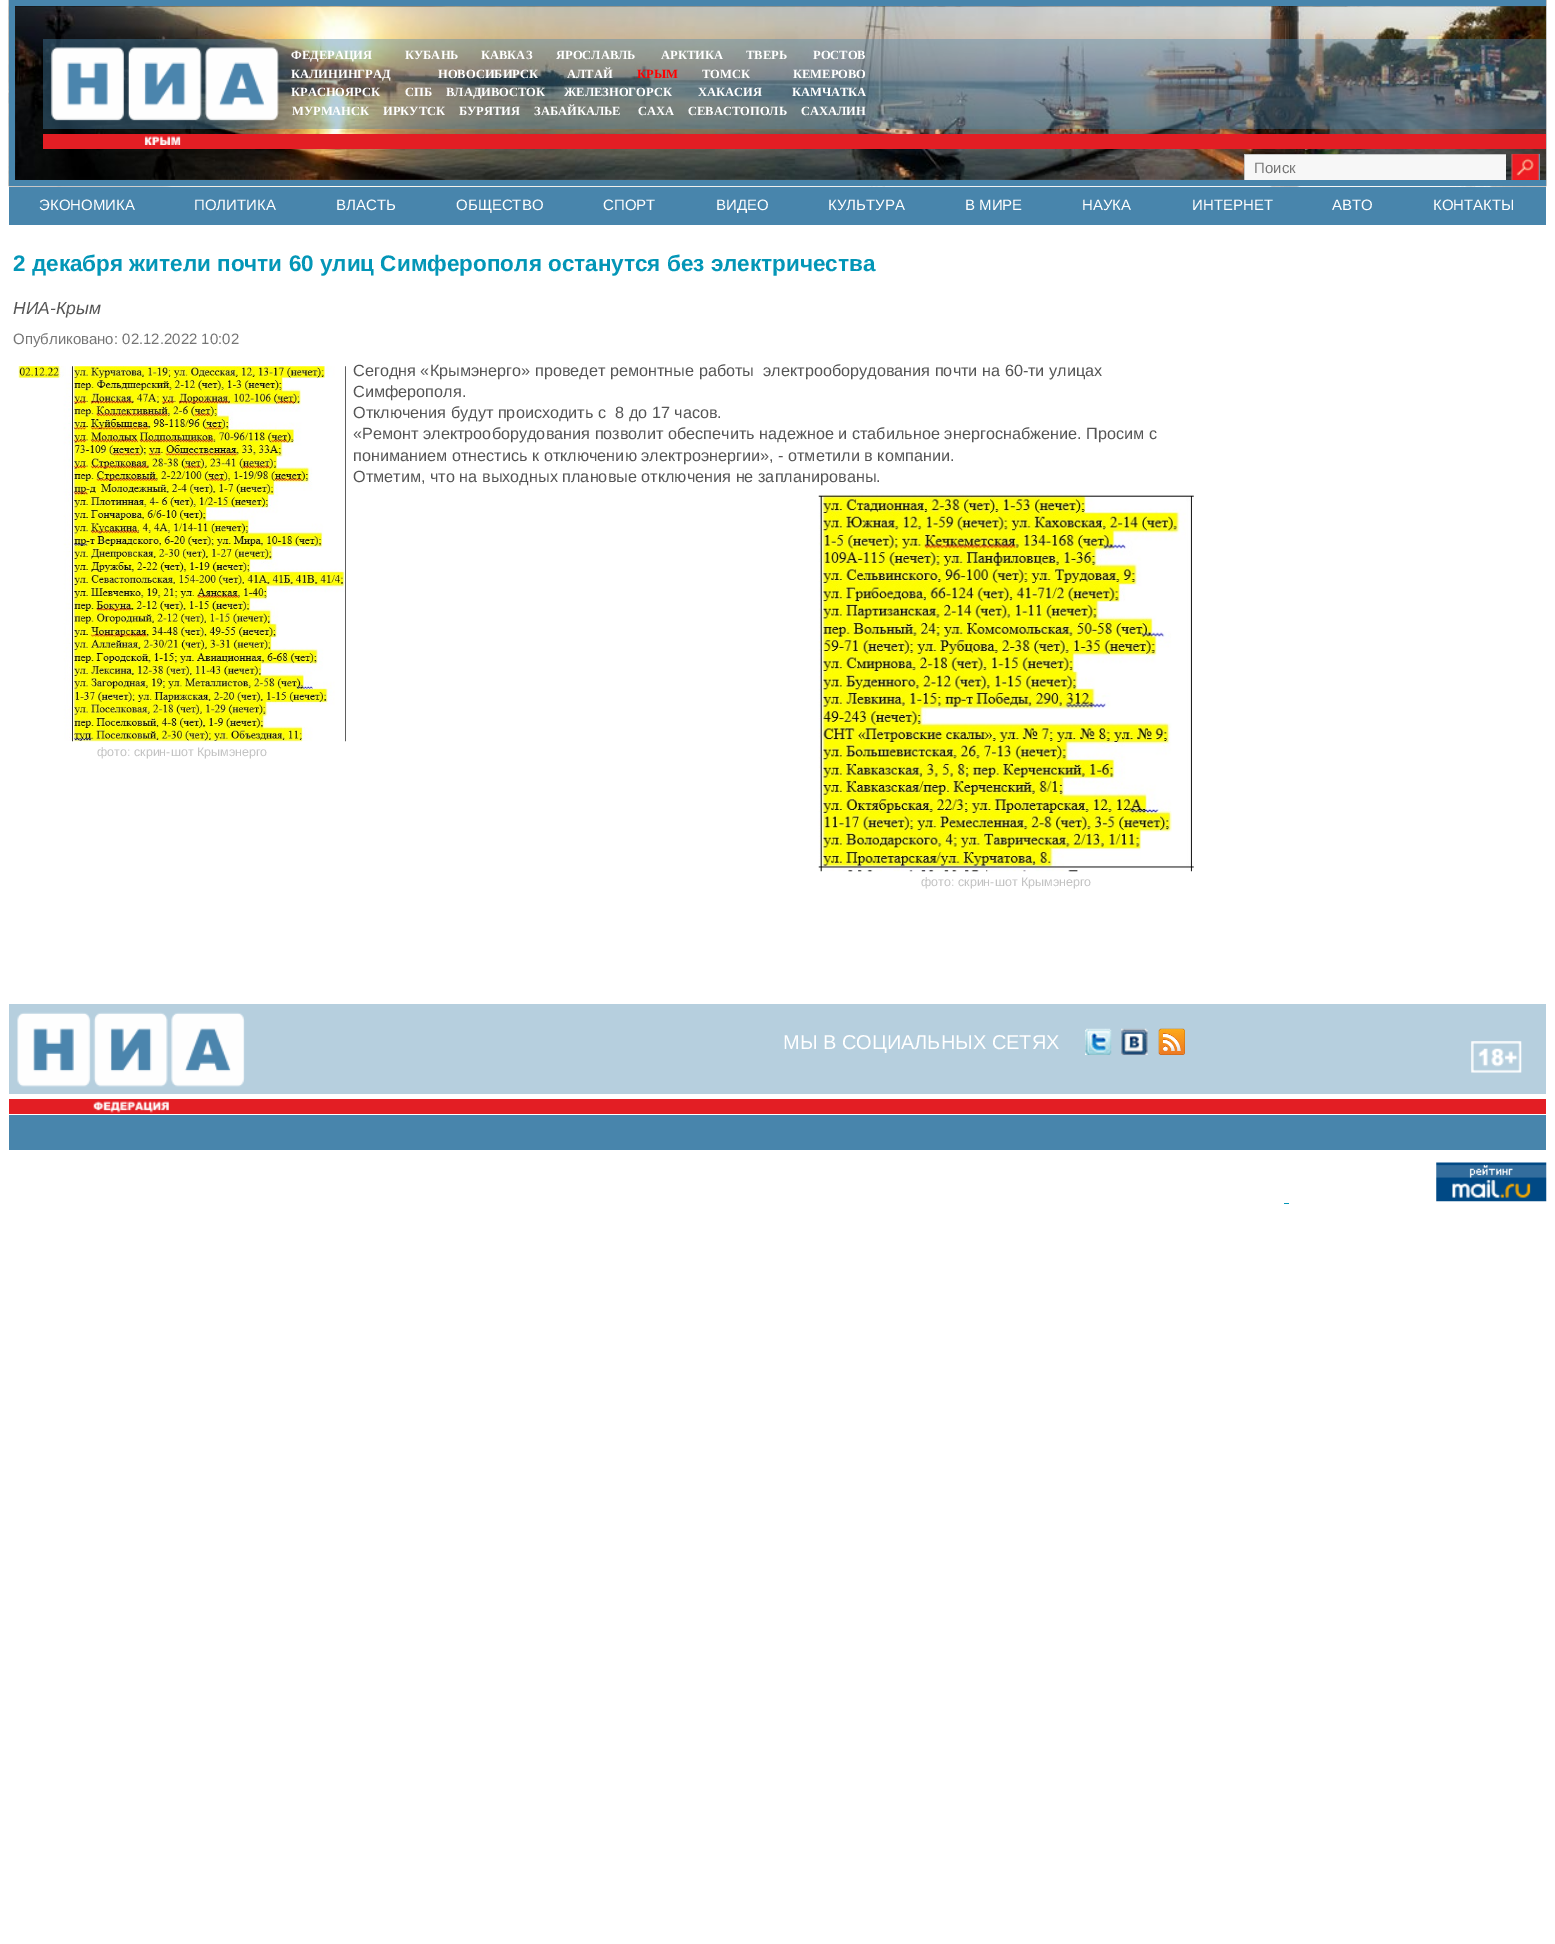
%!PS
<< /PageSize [1555 1944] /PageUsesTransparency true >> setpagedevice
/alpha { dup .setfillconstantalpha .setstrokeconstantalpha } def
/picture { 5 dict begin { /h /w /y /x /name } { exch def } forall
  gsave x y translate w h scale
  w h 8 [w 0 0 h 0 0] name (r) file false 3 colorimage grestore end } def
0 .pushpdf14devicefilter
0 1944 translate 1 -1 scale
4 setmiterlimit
1 setgray
0 0 1555 1944 rectfill
(img1.rgb) 8 0 1539 187 picture
0.282 0.522 0.675 setrgbcolor
9 0 1537 6 rectfill
9 180 1537 6 rectfill
9 0 6 186 rectfill
0.4 alpha
43 39 1503 90 rectfill
1 alpha
0.89 0.118 0.141 setrgbcolor
43 134 1503 15 rectfill
(img2.rgb) 51 47 228 98 picture
/LiberationSerif-Bold [12.5 0 0 -12.5 0 0] selectfont
1 setgray
291 59 moveto (ФЕДЕРАЦИЯ) show
405 59 moveto (КУБАНЬ) show
481 59 moveto (КАВКАЗ) show
556 59 moveto (ЯРОСЛАВЛЬ) show
661 59 moveto (АРКТИКА) show
746 59 moveto (ТВЕРЬ) show
813 59 moveto (РОСТОВ) show
291 78 moveto (КАЛИНИНГРАД) show
438 78 moveto (НОВОСИБИРСК) show
567 78 moveto (АЛТАЙ) show
1 0 0 setrgbcolor
637 78 moveto (КРЫМ) show
1 setgray
702 78 moveto (ТОМСК) show
793 78 moveto (КЕМЕРОВО) show
291 96 moveto (КРАСНОЯРСК) show
405 96 moveto (СПБ) show
446 96 moveto (ВЛАДИВОСТОК) show
564 96 moveto (ЖЕЛЕЗНОГОРСК) show
698 96 moveto (ХАКАСИЯ) show
792 96 moveto (КАМЧАТКА) show
292 115 moveto (МУРМАНСК) show
383 115 moveto (ИРКУТСК) show
459 115 moveto (БУРЯТИЯ) show
534 115 moveto (ЗАБАЙКАЛЬЕ) show
638 115 moveto (САХА) show
688 115 moveto (СЕВАСТОПОЛЬ) show
801 115 moveto (САХАЛИН) show
0.969 setgray
1245 155 261 25 rectfill
0.769 setgray
1244 154 262 1 rectfill
1244 154 1 26 rectfill
/LiberationSans-Regular [15 0 0 -15 0 0] selectfont
0.459 setgray
1254 173 moveto (Поиск) show
(img3.rgb) 1511 153 29 27 picture
0.282 0.522 0.675 setrgbcolor
9 187 1537 38 rectfill
1 setgray
39 210 moveto (ЭКОНОМИКА) show
194 210 moveto (ПОЛИТИКА) show
336 210 moveto (ВЛАСТЬ) show
456 210 moveto (ОБЩЕСТВО) show
603 210 moveto (СПОРТ) show
716 210 moveto (ВИДЕО) show
828 210 moveto (КУЛЬТУРА) show
965 210 moveto (В МИРЕ) show
1082 210 moveto (НАУКА) show
1192 210 moveto (ИНТЕРНЕТ) show
1332 210 moveto (АВТО) show
1433 210 moveto (КОНТАКТЫ) show
/LiberationSans-Bold [22.5 0 0 -22.5 0 0] selectfont
0.012 0.588 0.718 setrgbcolor
13 271 moveto (2 декабря жители почти 60 улиц Симферополя останутся без электричества) show
/LiberationSans-Italic [17.5 0 0 -17.5 0 0] selectfont
0.333 setgray
13 314 moveto (НИА-Крым) show
/LiberationSans-Regular [15 0 0 -15 0 0] selectfont
0.459 setgray
13 344 moveto (Опубликовано: 02.12.2022 10:02) show
/LiberationSans-Regular [16.25 0 0 -16.25 0 0] selectfont
0.333 setgray
353 376 moveto (Сегодня «Крымэнерго» проведет ремонтные работы  электрооборудования почти на 60-ти улицах) show
353 397 moveto (Симферополя.) show
(img4.rgb) 18 366 328 376 picture
/LiberationSans-Regular [12.5 0 0 -12.5 0 0] selectfont
0.765 setgray
97 756 moveto (фото: скрин-шот Крымэнерго) show
/LiberationSans-Regular [16.25 0 0 -16.25 0 0] selectfont
0.333 setgray
353 418 moveto (Отключения будут происходить с  8 до 17 часов.) show
353 439 moveto («Ремонт электрооборудования позволит обеспечить надежное и стабильное энергоснабжение. Просим с) show
353 461 moveto (пониманием отнестись к отключению электроэнергии», - отметили в компании.) show
353 482 moveto (Отметим, что на выходных плановые отключения не запланированы.) show
(img5.rgb) 818 494 376 378 picture
/LiberationSans-Regular [12.5 0 0 -12.5 0 0] selectfont
0.765 setgray
921 886 moveto (фото: скрин-шот Крымэнерго) show
0.714 0.812 0.871 setrgbcolor
9 1004 1537 90 rectfill
0.89 0.118 0.141 setrgbcolor
9 1099 1537 15 rectfill
(img6.rgb) 17 1012 228 101 picture
/LiberationSans-Regular [20 0 0 -20 0 0] selectfont
1 setgray
783 1049 moveto (МЫ В СОЦИАЛЬНЫХ СЕТЯХ) show
(img7.rgb) 1085 1028 27 27 picture
(img8.rgb) 1121 1028 27 27 picture
(img9.rgb) 1158 1028 27 27 picture
(img10.rgb) 1471 1041 51 32 picture
0.282 0.522 0.675 setrgbcolor
9 1115 1537 35 rectfill
(img11.rgb) 1436 1162 111 40 picture
0.012 0.588 0.718 setrgbcolor
1284 1203 5 1 rectfill
.poppdf14devicefilter showpage
